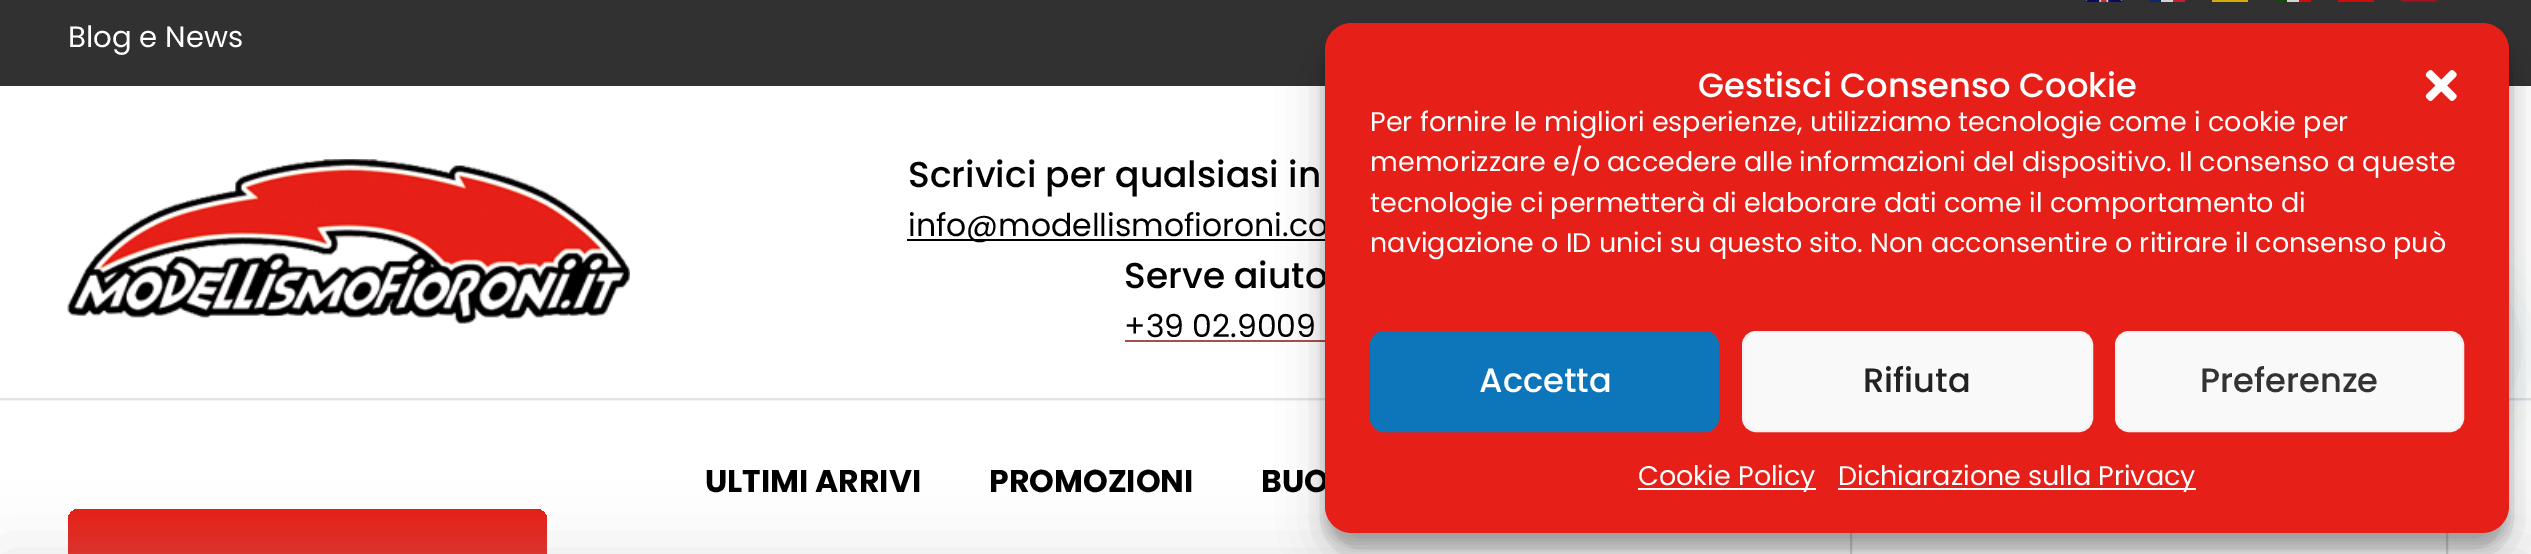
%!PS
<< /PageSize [2531 554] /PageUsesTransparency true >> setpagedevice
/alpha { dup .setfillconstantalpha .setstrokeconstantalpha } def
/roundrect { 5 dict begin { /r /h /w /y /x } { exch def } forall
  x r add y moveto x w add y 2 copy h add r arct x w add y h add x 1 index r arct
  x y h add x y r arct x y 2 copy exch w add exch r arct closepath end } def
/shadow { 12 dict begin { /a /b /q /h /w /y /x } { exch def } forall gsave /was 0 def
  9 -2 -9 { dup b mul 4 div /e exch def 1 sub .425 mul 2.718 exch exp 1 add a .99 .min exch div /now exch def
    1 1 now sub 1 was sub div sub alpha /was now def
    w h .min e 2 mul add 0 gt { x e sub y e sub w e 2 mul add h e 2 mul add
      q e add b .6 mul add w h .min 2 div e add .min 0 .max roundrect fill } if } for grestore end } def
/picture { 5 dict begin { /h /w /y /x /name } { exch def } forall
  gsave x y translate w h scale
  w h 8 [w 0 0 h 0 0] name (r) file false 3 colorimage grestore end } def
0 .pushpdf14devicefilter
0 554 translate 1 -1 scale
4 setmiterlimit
0.945 0.953 0.973 setrgbcolor
0 0 2531 554 rectfill
0.192 setgray
0 0 2531 86 rectfill
(img1.rgb) 2086 0 36 2 picture
0.039 0.157 0.435 setrgbcolor
2149 0 12 2 rectfill
0.839 setgray
2161 0 12 2 rectfill
0.8 0.114 0.188 setrgbcolor
2173 0 12 2 rectfill
0.839 0.678 0.039 setrgbcolor
2212 0 36 2 rectfill
0.039 0.31 0.039 setrgbcolor
2275 0 12 2 rectfill
0.839 setgray
2287 0 12 2 rectfill
0.827 0.039 0.039 setrgbcolor
2299 0 12 2 rectfill
0.835 0.043 0.043 setrgbcolor
2338 0 36 2 rectfill
(img2.rgb) 2401 0 36 2 picture
/Poppins-Regular [29.25 0 0 -29.25 0 0] selectfont
1 setgray
68 47 moveto (Blog e News) show
0 86 2531 312 rectfill
(img3.rgb) 67 159 563 165 picture
/Poppins-Medium [36 0 0 -36 0 0] selectfont
0 setgray
908 187 moveto (Scrivici per qualsiasi in) show
907 239 418 2 rectfill
/Poppins-Regular [31.5 0 0 -31.5 0 0] selectfont
908 236 moveto (info@modellismofioroni.co) show
/Poppins-Medium [36 0 0 -36 0 0] selectfont
1124 288 moveto (Serve aiuto) show
/Poppins-Regular [31.5 0 0 -31.5 0 0] selectfont
1124 337 moveto (+39 02.9009) show
0.647 0.314 0.314 setrgbcolor
1125 340 200 2 rectfill
1 setgray
0 401 2531 153 rectfill
0.894 setgray
0 398 2531 2 rectfill
/Poppins-Bold [31.5 0 0 -31.5 0 0] selectfont
0 setgray
705 492 moveto (ULTIMI ARRIVI) show
989 492 moveto (PROMOZIONI) show
1261 492 moveto (BUO) show
gsave 68 509 479 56 11 roundrect clip newpath
<< /ShadingType 2 /ColorSpace /DeviceRGB /Coords [307 509 307 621] /Extend [true true] /Function << /FunctionType 2 /Domain [0 1] /C0 [0.902 0.125 0.094] /C1 [0.894 0.345 0.322] /N 1 >> >> shfill grestore
0.847 setgray
2 setlinewidth
1851 505 596 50 rectstroke
0 setgray
0 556 2531 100 0 34 0.1 shadow
1325 36 1184 511 27 7 0.23 shadow
1325 45 1184 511 27 22.5 0.19 shadow
0.027 0.369 0.329 setrgbcolor
2367 281 135 135 67.5 27 0.24 shadow
0.902 0.125 0.094 setrgbcolor
1325 23 1184 510 27 roundrect fill
/Poppins-Medium [33.75 0 0 -33.75 0 0] selectfont
1 setgray
1698 97 moveto (Gestisci Consenso Cookie) show
(img4.rgb) 2425 70 32 31 picture
/Poppins-Regular [27 0 0 -27 0 0] selectfont
1370 131 moveto (Per fornire le migliori esperienze, utilizziamo tecnologie come i cookie per) show
1370 171 moveto (memorizzare e/o accedere alle informazioni del dispositivo. Il consenso a queste) show
1370 212 moveto (tecnologie ci permetterà di elaborare dati come il comportamento di) show
1370 252 moveto (navigazione o ID unici su questo sito. Non acconsentire o ritirare il consenso può) show
0.051 0.463 0.733 setrgbcolor
1371 332 347 99 13 roundrect gsave fill grestore
stroke
/Poppins-Medium [33.75 0 0 -33.75 0 0] selectfont
1 setgray
1479 392 moveto (Accetta) show
0.976 setgray
1743 332 349 99 13 roundrect gsave fill grestore
0.949 setgray
stroke
0.133 setgray
1863 392 moveto (Rifiuta) show
0.976 setgray
2116 332 347 99 13 roundrect gsave fill grestore
0.949 setgray
stroke
0.2 setgray
2200 392 moveto (Preferenze) show
1 setgray
1638 488 178 2 rectfill
/Poppins-Regular [27 0 0 -27 0 0] selectfont
1638 485 moveto (Cookie Policy) show
1838 488 358 2 rectfill
1838 485 moveto (Dichiarazione sulla Privacy) show
.poppdf14devicefilter showpage
